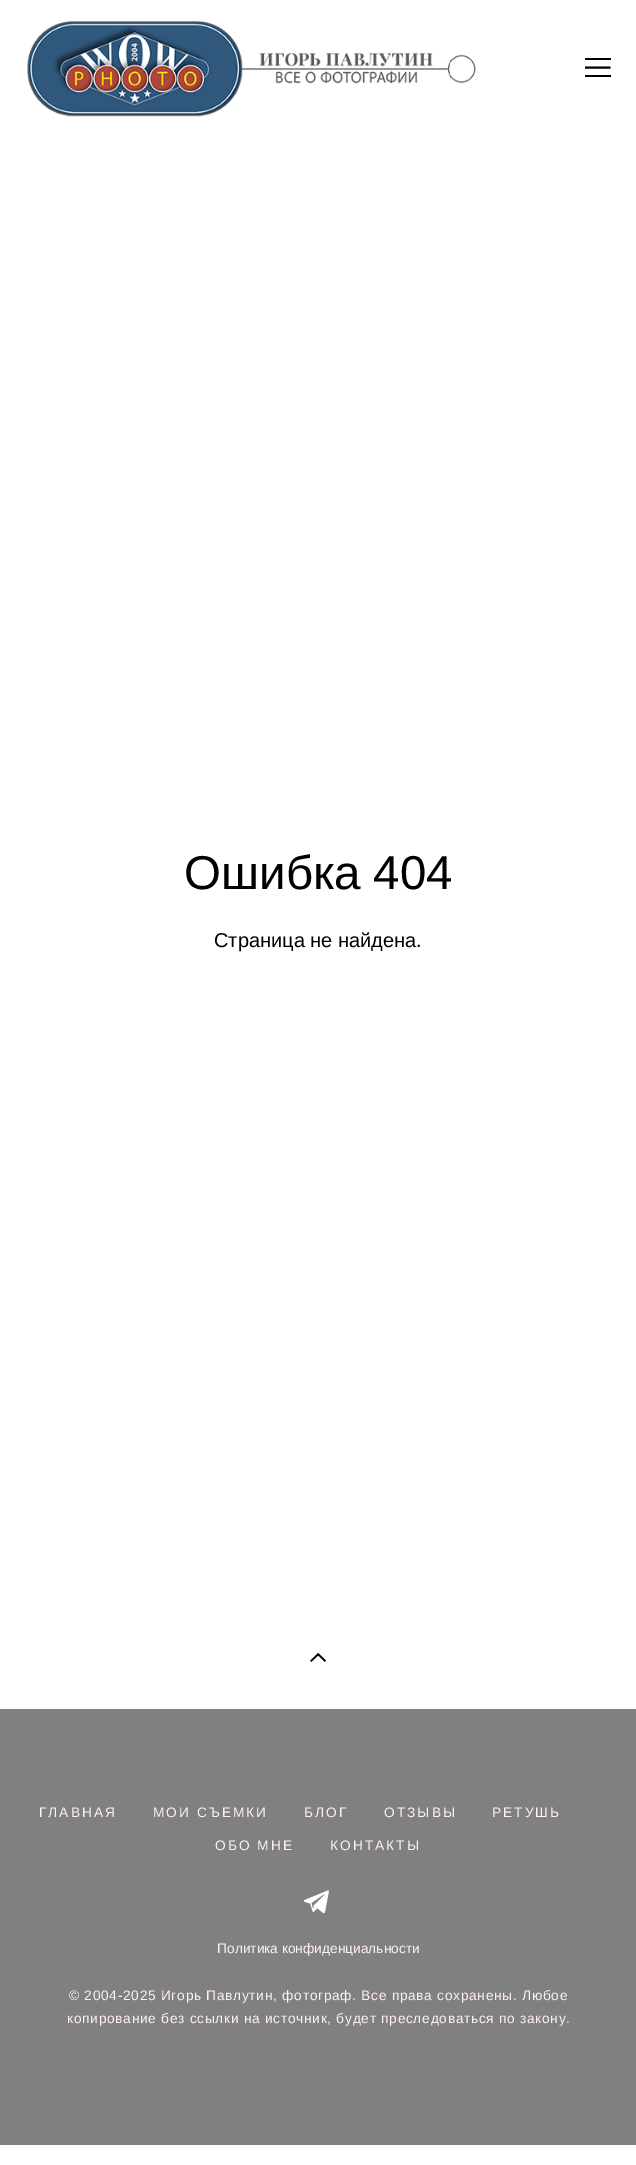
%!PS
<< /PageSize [636 2165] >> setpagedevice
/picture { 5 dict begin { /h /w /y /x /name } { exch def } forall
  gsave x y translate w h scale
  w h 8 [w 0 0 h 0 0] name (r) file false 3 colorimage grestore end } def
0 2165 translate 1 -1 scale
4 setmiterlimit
1 setgray
0 0 636 2165 rectfill
(img1.rgb) 27 21 449 96 picture
0 setgray
585 58 26 2 rectfill
2.1 setlinewidth
newpath 585 67.5 moveto 610.5 67.5 lineto stroke
585 75 26 2 rectfill
/LiberationSans-Regular [47.5 0 0 -47.5 0 0] selectfont
184 889 moveto (Ошибка 404) show
/LiberationSans-Regular [20 0 0 -20 0 0] selectfont
214 947 moveto (Страница не найдена.) show
(img2.rgb) 310 1652 16 10 picture
0.502 setgray
0 1709 636 436 rectfill
/LiberationSans-Regular [13.75 0 0 -13.75 0 0] selectfont
1 0.941 0.961 setrgbcolor
39 1817 moveto 2 0 (ГЛАВНАЯ) ashow
153 1817 moveto 2 0 (МОИ СЪЕМКИ) ashow
304 1817 moveto 2 0 (БЛОГ) ashow
384 1817 moveto 2 0 (ОТЗЫВЫ) ashow
492 1817 moveto 2 0 (РЕТУШЬ) ashow
215 1850 moveto 2 0 (ОБО МНЕ) ashow
330 1850 moveto 2 0 (КОНТАКТЫ) ashow
(img3.rgb) 303 1890 26 24 picture
217 1953 moveto (Политика конфиденциальности) show
69 2000 moveto 0.7 0 (© 2004-2025 Игорь Павлутин, фотограф. Все права сохранены. Любое) ashow
67 2023 moveto 0.7 0 (копирование без ссылки на источник, будет преследоваться по закону.) ashow
showpage
